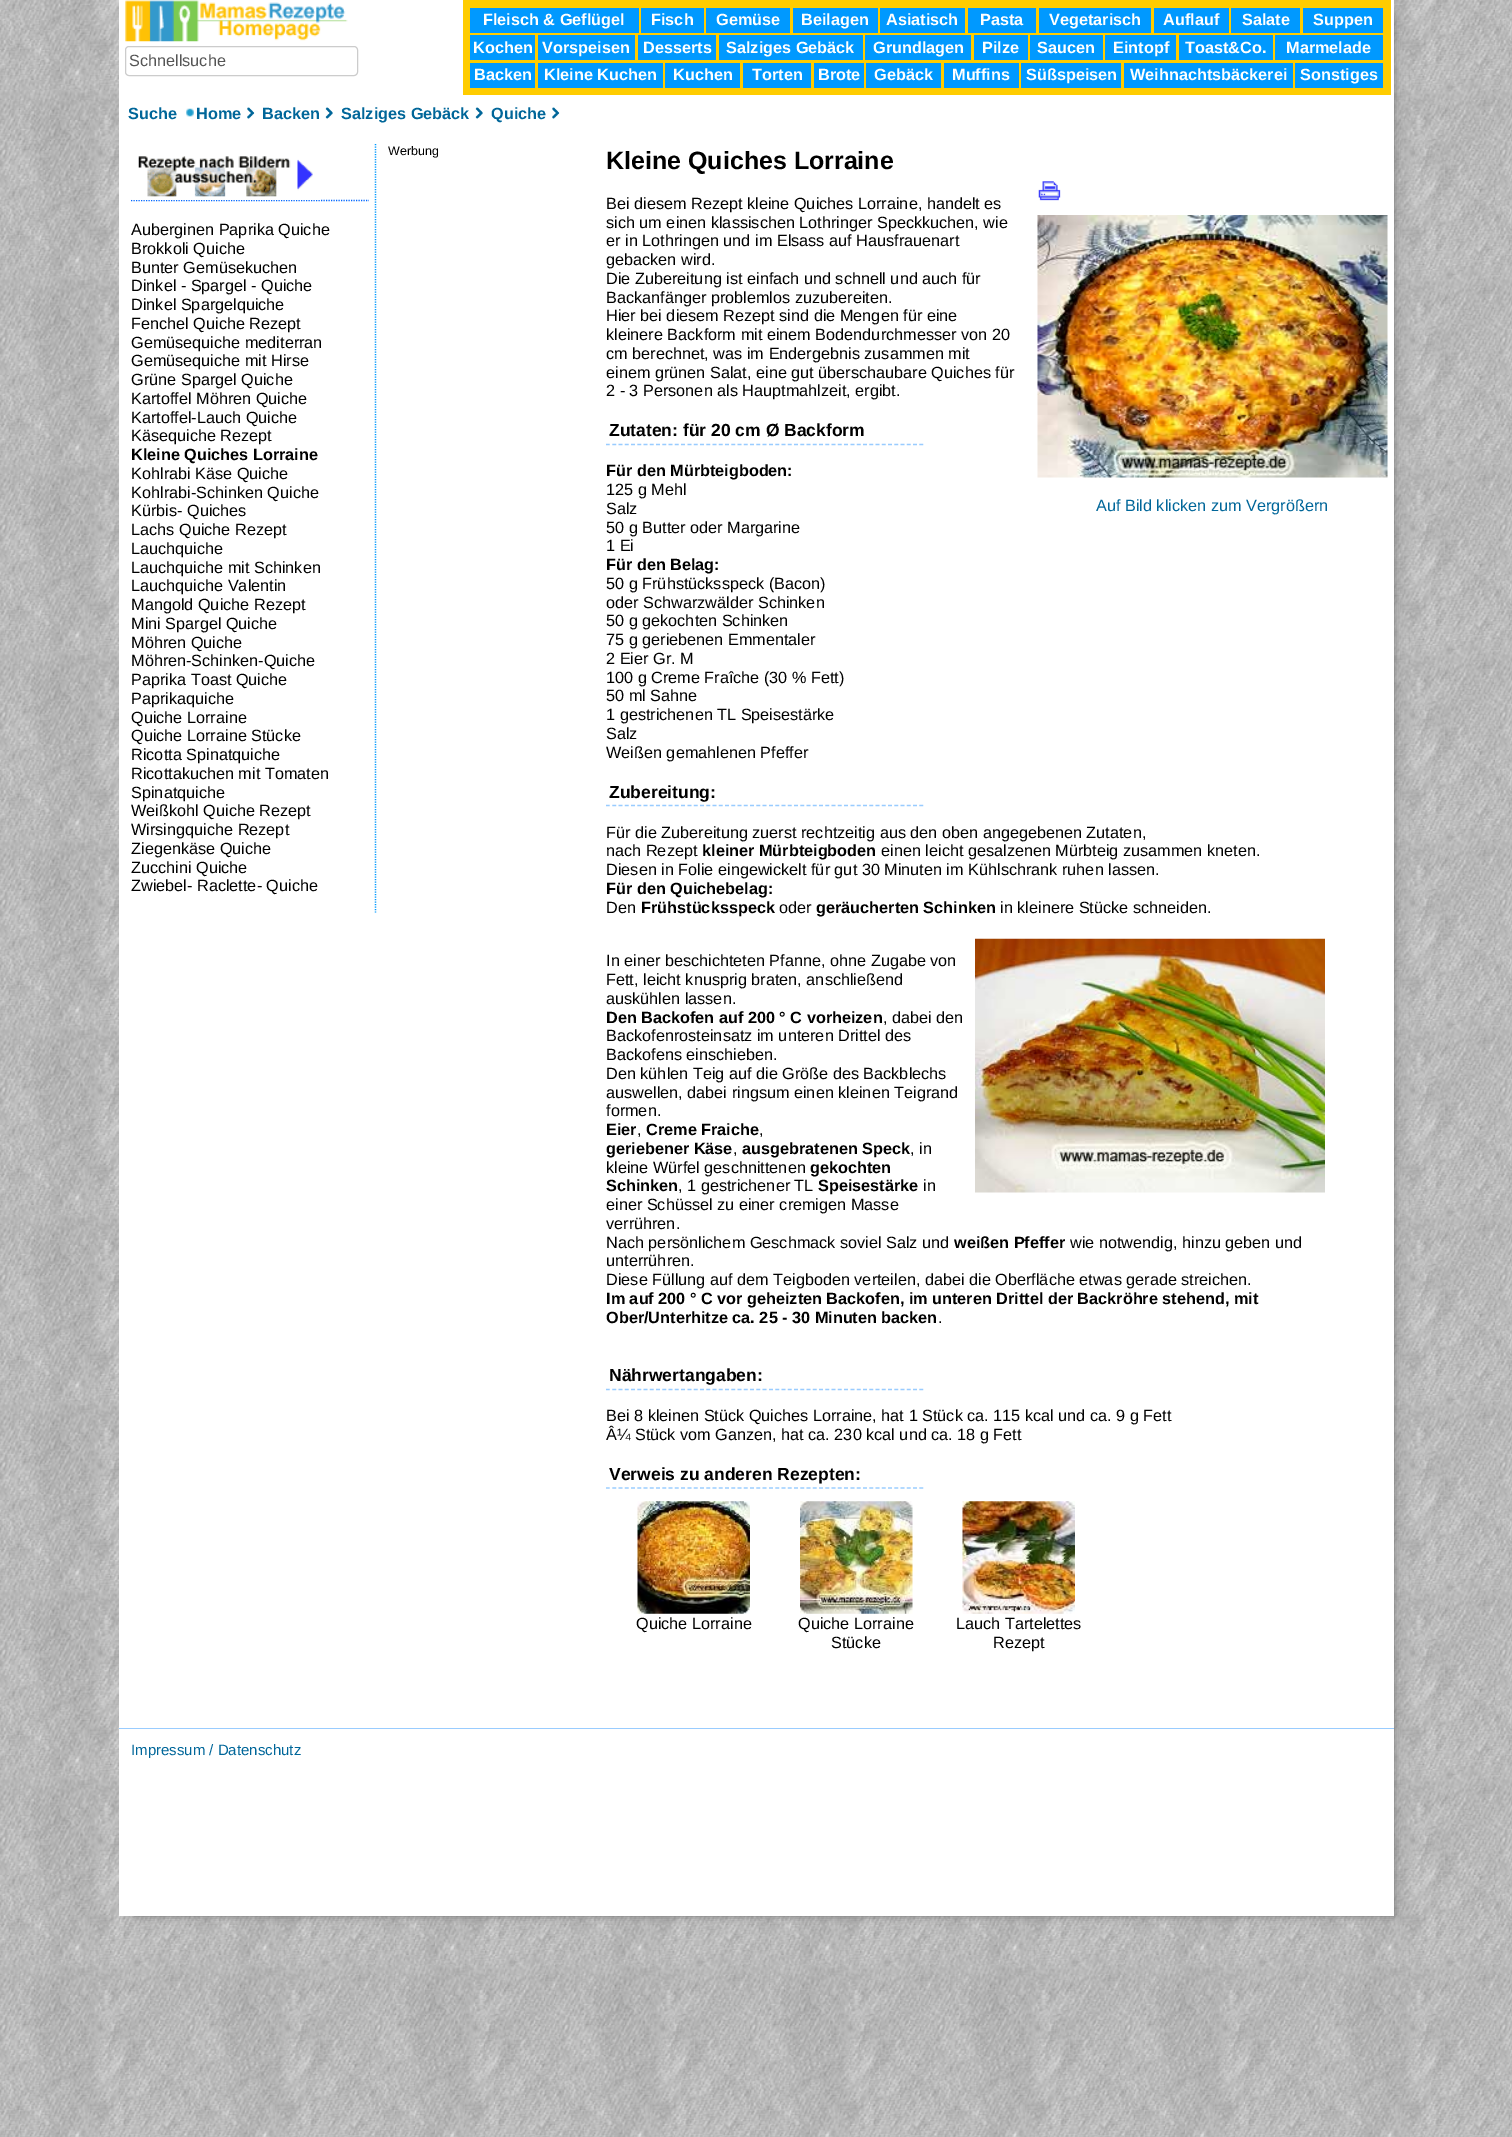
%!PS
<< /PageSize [1512 2137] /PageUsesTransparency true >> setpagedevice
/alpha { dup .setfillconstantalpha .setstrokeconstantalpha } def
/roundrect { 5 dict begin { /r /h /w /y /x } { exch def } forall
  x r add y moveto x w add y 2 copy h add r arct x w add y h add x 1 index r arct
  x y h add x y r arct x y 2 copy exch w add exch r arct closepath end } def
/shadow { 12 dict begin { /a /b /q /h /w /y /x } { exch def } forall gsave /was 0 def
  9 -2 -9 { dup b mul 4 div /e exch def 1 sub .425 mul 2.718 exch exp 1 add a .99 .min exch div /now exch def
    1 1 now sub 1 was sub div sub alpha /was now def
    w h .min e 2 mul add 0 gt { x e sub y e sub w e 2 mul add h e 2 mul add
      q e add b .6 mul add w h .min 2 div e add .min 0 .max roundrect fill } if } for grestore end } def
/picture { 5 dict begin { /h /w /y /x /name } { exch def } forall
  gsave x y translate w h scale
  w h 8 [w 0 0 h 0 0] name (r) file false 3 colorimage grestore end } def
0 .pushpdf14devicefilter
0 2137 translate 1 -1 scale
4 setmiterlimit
1 setgray
0 0 1512 2137 rectfill
(img1.rgb) 0 0 1512 2137 picture
0.467 setgray
134 15 1260 1901 0 4 1 shadow
1 setgray
119 0 1275 1916 rectfill
(img2.rgb) 125 0 223 42 picture
0.8 setgray
125.5 46.5 232 29 3.5 roundrect stroke
/LiberationSans-Regular [16.25 0 0 -16.25 0 0] selectfont
0.333 setgray
129 66 moveto (Schnellsuche) show
1 0.8 0 setrgbcolor
463 0 928 95 rectfill
0 0.6 1 setrgbcolor
470 8 169 25 rectfill
/LiberationSans-Bold [16.25 0 0 -16.25 0 0] selectfont
1 setgray
483 25 moveto (Fleisch & Geflügel) show
0 0.6 1 setrgbcolor
641 8 63 25 rectfill
1 setgray
651 25 moveto (Fisch) show
0 0.6 1 setrgbcolor
706 8 84 25 rectfill
1 setgray
716 25 moveto (Gemüse) show
0 0.6 1 setrgbcolor
793 8 85 25 rectfill
1 setgray
801 25 moveto (Beilagen) show
0 0.6 1 setrgbcolor
880 8 85 25 rectfill
1 setgray
886 25 moveto (Asiatisch) show
0 0.6 1 setrgbcolor
968 8 68 25 rectfill
1 setgray
980 25 moveto (Pasta) show
0 0.6 1 setrgbcolor
1039 8 112 25 rectfill
1 setgray
1049 25 moveto (Vegetarisch) show
0 0.6 1 setrgbcolor
1154 8 75 25 rectfill
1 setgray
1163 25 moveto (Auflauf) show
0 0.6 1 setrgbcolor
1231 8 69 25 rectfill
1 setgray
1242 25 moveto (Salate) show
0 0.6 1 setrgbcolor
1303 8 80 25 rectfill
1 setgray
1313 25 moveto (Suppen) show
0 0.6 1 setrgbcolor
470 35 65 25 rectfill
1 setgray
473 53 moveto (Kochen) show
0 0.6 1 setrgbcolor
538 35 97 25 rectfill
1 setgray
542 53 moveto (Vorspeisen) show
0 0.6 1 setrgbcolor
638 35 78 25 rectfill
1 setgray
643 53 moveto (Desserts) show
0 0.6 1 setrgbcolor
719 35 144 25 rectfill
1 setgray
726 53 moveto (Salziges Gebäck) show
0 0.6 1 setrgbcolor
865 35 106 25 rectfill
1 setgray
873 53 moveto (Grundlagen) show
0 0.6 1 setrgbcolor
974 35 54 25 rectfill
1 setgray
982 53 moveto (Pilze) show
0 0.6 1 setrgbcolor
1030 35 73 25 rectfill
1 setgray
1037 53 moveto (Saucen) show
0 0.6 1 setrgbcolor
1105 35 71 25 rectfill
1 setgray
1113 53 moveto (Eintopf) show
0 0.6 1 setrgbcolor
1179 35 94 25 rectfill
1 setgray
1185 53 moveto (Toast&Co.) show
0 0.6 1 setrgbcolor
1275 35 108 25 rectfill
1 setgray
1286 53 moveto (Marmelade) show
0 0.6 1 setrgbcolor
470 63 65 25 rectfill
1 setgray
474 80 moveto (Backen) show
0 0.6 1 setrgbcolor
538 63 125 25 rectfill
1 setgray
544 80 moveto (Kleine Kuchen) show
0 0.6 1 setrgbcolor
665 63 75 25 rectfill
1 setgray
673 80 moveto (Kuchen) show
0 0.6 1 setrgbcolor
743 63 68 25 rectfill
1 setgray
752 80 moveto (Torten) show
0 0.6 1 setrgbcolor
814 63 50 25 rectfill
1 setgray
818 80 moveto (Brote) show
0 0.6 1 setrgbcolor
866 63 75 25 rectfill
1 setgray
874 80 moveto (Gebäck) show
0 0.6 1 setrgbcolor
944 63 75 25 rectfill
1 setgray
952 80 moveto (Muffins) show
0 0.6 1 setrgbcolor
1021 63 100 25 rectfill
1 setgray
1026 80 moveto (Süßspeisen) show
0 0.6 1 setrgbcolor
1124 63 169 25 rectfill
1 setgray
1130 80 moveto (Weihnachtsbäckerei) show
0 0.6 1 setrgbcolor
1295 63 88 25 rectfill
1 setgray
1300 80 moveto (Sonstiges) show
0 0.4 0.6 setrgbcolor
128 119 moveto (Suche) show
(img3.rgb) 186 108 8 9 picture
196 119 moveto (Home) show
(img4.rgb) 247 107 8 12 picture
262 119 moveto (Backen) show
(img5.rgb) 325 107 8 12 picture
341 119 moveto (Salziges Gebäck) show
(img5.rgb) 475 107 8 12 picture
491 119 moveto (Quiche) show
(img6.rgb) 552 107 8 12 picture
0 0.6 1 setrgbcolor
1.2 setlinewidth
[1.25 1.25] 0 setdash
newpath 375.5 144 moveto 375.5 912.5 lineto stroke
0 0.4 1 setrgbcolor
newpath 131 200.5 moveto 369 200.5 lineto stroke
(img7.rgb) 131 156 189 44 picture
/LiberationSans-Regular [16.25 0 0 -16.25 0 0] selectfont
0 setgray
131 235 moveto (Auberginen Paprika Quiche) show
131 254 moveto (Brokkoli Quiche) show
131 273 moveto (Bunter Gemüsekuchen) show
131 291 moveto (Dinkel - Spargel - Quiche) show
131 310 moveto (Dinkel Spargelquiche) show
131 329 moveto (Fenchel Quiche Rezept) show
131 348 moveto (Gemüsequiche mediterran) show
131 366 moveto (Gemüsequiche mit Hirse) show
131 385 moveto (Grüne Spargel Quiche) show
131 404 moveto (Kartoffel Möhren Quiche) show
131 423 moveto (Kartoffel-Lauch Quiche) show
131 441 moveto (Käsequiche Rezept) show
/LiberationSans-Bold [16.25 0 0 -16.25 0 0] selectfont
131 460 moveto (Kleine Quiches Lorraine) show
/LiberationSans-Regular [16.25 0 0 -16.25 0 0] selectfont
131 479 moveto (Kohlrabi Käse Quiche) show
131 498 moveto (Kohlrabi-Schinken Quiche) show
131 516 moveto (Kürbis- Quiches) show
131 535 moveto (Lachs Quiche Rezept) show
131 554 moveto (Lauchquiche) show
131 573 moveto (Lauchquiche mit Schinken) show
131 591 moveto (Lauchquiche Valentin) show
131 610 moveto (Mangold Quiche Rezept) show
131 629 moveto (Mini Spargel Quiche) show
131 648 moveto (Möhren Quiche) show
131 666 moveto (Möhren-Schinken-Quiche) show
131 685 moveto (Paprika Toast Quiche) show
131 704 moveto (Paprikaquiche) show
131 723 moveto (Quiche Lorraine) show
131 741 moveto (Quiche Lorraine Stücke) show
131 760 moveto (Ricotta Spinatquiche) show
131 779 moveto (Ricottakuchen mit Tomaten) show
131 798 moveto (Spinatquiche) show
131 816 moveto (Weißkohl Quiche Rezept) show
131 835 moveto (Wirsingquiche Rezept) show
131 854 moveto (Ziegenkäse Quiche) show
131 873 moveto (Zucchini Quiche) show
131 891 moveto (Zwiebel- Raclette- Quiche) show
/LiberationSans-Regular [12.5 0 0 -12.5 0 0] selectfont
388 155 moveto (Werbung) show
/LiberationSans-Bold [25 0 0 -25 0 0] selectfont
606 169 moveto (Kleine Quiches Lorraine) show
/LiberationSans-Regular [16.25 0 0 -16.25 0 0] selectfont
606 209 moveto (Bei diesem Rezept kleine Quiches Lorraine, handelt es) show
606 228 moveto (sich um einen klassischen Lothringer Speckkuchen, wie) show
606 246 moveto (er in Lothringen und im Elsass auf Hausfrauenart) show
606 265 moveto (gebacken wird.) show
606 284 moveto (Die Zubereitung ist einfach und schnell und auch für) show
606 303 moveto (Backanfänger problemlos zuzubereiten.) show
606 321 moveto (Hier bei diesem Rezept sind die Mengen für eine) show
606 340 moveto (kleinere Backform mit einem Bodendurchmesser von 20) show
606 359 moveto (cm berechnet, was im Endergebnis zusammen mit) show
606 378 moveto (einem grünen Salat, eine gut überschaubare Quiches für) show
606 396 moveto (2 - 3 Personen als Hauptmahlzeit, ergibt.) show
0.6 0.8 1 setrgbcolor
[3.75 2.52] 0 setdash
newpath 606 444.5 moveto 924 444.5 lineto stroke
/LiberationSans-Bold [17.5 0 0 -17.5 0 0] selectfont
0 setgray
609 436 moveto (Zutaten: für 20 cm Ø Backform) show
/LiberationSans-Bold [16.25 0 0 -16.25 0 0] selectfont
606 476 moveto (Für den Mürbteigboden:) show
/LiberationSans-Regular [16.25 0 0 -16.25 0 0] selectfont
606 495 moveto (125 g Mehl) show
606 514 moveto (Salz) show
606 533 moveto (50 g Butter oder Margarine) show
606 551 moveto (1 Ei) show
/LiberationSans-Bold [16.25 0 0 -16.25 0 0] selectfont
606 570 moveto (Für den Belag:) show
/LiberationSans-Regular [16.25 0 0 -16.25 0 0] selectfont
606 589 moveto (50 g Frühstücksspeck \(Bacon\)) show
606 608 moveto (oder Schwarzwälder Schinken) show
606 626 moveto (50 g gekochten Schinken) show
606 645 moveto (75 g geriebenen Emmentaler) show
606 664 moveto (2 Eier Gr. M) show
606 683 moveto (100 g Creme Fraîche \(30 % Fett\)) show
606 701 moveto (50 ml Sahne) show
606 720 moveto (1 gestrichenen TL Speisestärke) show
606 739 moveto (Salz) show
606 758 moveto (Weißen gemahlenen Pfeffer) show
(img8.rgb) 1038 181 23 20 picture
(img9.rgb) 1037 215 351 263 picture
0 0.4 0.6 setrgbcolor
1096 511 moveto (Auf Bild klicken zum Vergrößern) show
0.6 0.8 1 setrgbcolor
newpath 606 805.5 moveto 924 805.5 lineto stroke
/LiberationSans-Bold [17.5 0 0 -17.5 0 0] selectfont
0 setgray
609 798 moveto (Zubereitung:) show
/LiberationSans-Regular [16.25 0 0 -16.25 0 0] selectfont
606 838 moveto (Für die Zubereitung zuerst rechtzeitig aus den oben angegebenen Zutaten,) show
606 856 moveto (nach Rezept) show
/LiberationSans-Bold [16.25 0 0 -16.25 0 0] selectfont
702 856 moveto (kleiner Mürbteigboden) show
/LiberationSans-Regular [16.25 0 0 -16.25 0 0] selectfont
881 856 moveto (einen leicht gesalzenen Mürbteig zusammen kneten.) show
606 875 moveto (Diesen in Folie eingewickelt für gut 30 Minuten im Kühlschrank ruhen lassen.) show
/LiberationSans-Bold [16.25 0 0 -16.25 0 0] selectfont
606 894 moveto (Für den Quichebelag:) show
/LiberationSans-Regular [16.25 0 0 -16.25 0 0] selectfont
606 913 moveto (Den) show
/LiberationSans-Bold [16.25 0 0 -16.25 0 0] selectfont
641 913 moveto (Frühstücksspeck) show
/LiberationSans-Regular [16.25 0 0 -16.25 0 0] selectfont
779 913 moveto (oder) show
/LiberationSans-Bold [16.25 0 0 -16.25 0 0] selectfont
816 913 moveto (geräucherten Schinken) show
/LiberationSans-Regular [16.25 0 0 -16.25 0 0] selectfont
1000 913 moveto (in kleinere Stücke schneiden.) show
606 966 moveto (In einer beschichteten Pfanne, ohne Zugabe von) show
(img10.rgb) 975 938 350 255 picture
606 985 moveto (Fett, leicht knusprig braten, anschließend) show
606 1004 moveto (auskühlen lassen.) show
/LiberationSans-Bold [16.25 0 0 -16.25 0 0] selectfont
606 1023 moveto (Den Backofen auf 200 ° C vorheizen) show
/LiberationSans-Regular [16.25 0 0 -16.25 0 0] selectfont
883 1023 moveto (, dabei den) show
606 1041 moveto (Backofenrosteinsatz im unteren Drittel des) show
606 1060 moveto (Backofens einschieben.) show
606 1079 moveto (Den kühlen Teig auf die Größe des Backblechs) show
606 1098 moveto (auswellen, dabei ringsum einen kleinen Teigrand) show
606 1116 moveto (formen.) show
/LiberationSans-Bold [16.25 0 0 -16.25 0 0] selectfont
606 1135 moveto (Eier) show
/LiberationSans-Regular [16.25 0 0 -16.25 0 0] selectfont
637 1135 moveto (,) show
/LiberationSans-Bold [16.25 0 0 -16.25 0 0] selectfont
646 1135 moveto (Creme Fraiche) show
/LiberationSans-Regular [16.25 0 0 -16.25 0 0] selectfont
759 1135 moveto (,) show
/LiberationSans-Bold [16.25 0 0 -16.25 0 0] selectfont
606 1154 moveto (geriebener Käse) show
/LiberationSans-Regular [16.25 0 0 -16.25 0 0] selectfont
733 1154 moveto (,) show
/LiberationSans-Bold [16.25 0 0 -16.25 0 0] selectfont
742 1154 moveto (ausgebratenen Speck) show
/LiberationSans-Regular [16.25 0 0 -16.25 0 0] selectfont
910 1154 moveto (, in) show
606 1173 moveto (kleine Würfel geschnittenen) show
/LiberationSans-Bold [16.25 0 0 -16.25 0 0] selectfont
810 1173 moveto (gekochten) show
606 1191 moveto (Schinken) show
/LiberationSans-Regular [16.25 0 0 -16.25 0 0] selectfont
678 1191 moveto (, 1 gestrichener TL) show
/LiberationSans-Bold [16.25 0 0 -16.25 0 0] selectfont
818 1191 moveto (Speisestärke) show
/LiberationSans-Regular [16.25 0 0 -16.25 0 0] selectfont
923 1191 moveto (in) show
606 1210 moveto (einer Schüssel zu einer cremigen Masse) show
606 1229 moveto (verrühren.) show
606 1248 moveto (Nach persönlichem Geschmack soviel Salz und) show
/LiberationSans-Bold [16.25 0 0 -16.25 0 0] selectfont
954 1248 moveto (weißen Pfeffer) show
/LiberationSans-Regular [16.25 0 0 -16.25 0 0] selectfont
1070 1248 moveto (wie notwendig, hinzu geben und) show
606 1266 moveto (unterrühren.) show
606 1285 moveto (Diese Füllung auf dem Teigboden verteilen, dabei die Oberfläche etwas gerade streichen.) show
/LiberationSans-Bold [16.25 0 0 -16.25 0 0] selectfont
606 1304 moveto (Im auf 200 ° C vor geheizten Backofen, im unteren Drittel der Backröhre stehend, mit) show
606 1323 moveto (Ober/Unterhitze ca. 25 - 30 Minuten backen) show
/LiberationSans-Regular [16.25 0 0 -16.25 0 0] selectfont
938 1323 moveto (.) show
0.6 0.8 1 setrgbcolor
newpath 606 1389.5 moveto 924 1389.5 lineto stroke
/LiberationSans-Bold [17.5 0 0 -17.5 0 0] selectfont
0 setgray
609 1381 moveto (Nährwertangaben:) show
/LiberationSans-Regular [16.25 0 0 -16.25 0 0] selectfont
606 1421 moveto (Bei 8 kleinen Stück Quiches Lorraine, hat 1 Stück ca. 115 kcal und ca. 9 g Fett) show
606 1440 moveto (Â¼ Stück vom Ganzen, hat ca. 230 kcal und ca. 18 g Fett) show
0.6 0.8 1 setrgbcolor
newpath 606 1488 moveto 924 1488 lineto stroke
/LiberationSans-Bold [17.5 0 0 -17.5 0 0] selectfont
0 setgray
609 1480 moveto (Verweis zu anderen Rezepten:) show
(img11.rgb) 637 1501 113 113 picture
/LiberationSans-Regular [16.25 0 0 -16.25 0 0] selectfont
636 1629 moveto (Quiche Lorraine) show
(img12.rgb) 800 1501 113 113 picture
798 1629 moveto (Quiche Lorraine) show
831 1648 moveto (Stücke) show
(img13.rgb) 962 1501 113 113 picture
956 1629 moveto (Lauch Tartelettes) show
993 1648 moveto (Rezept) show
0.6 0.8 1 setrgbcolor
119 1728 1275 1 rectfill
/LiberationSans-Regular [15 0 0 -15 0 0] selectfont
0 0.4 0.6 setrgbcolor
131 1755 moveto (Impressum / Datenschutz) show
.poppdf14devicefilter showpage
